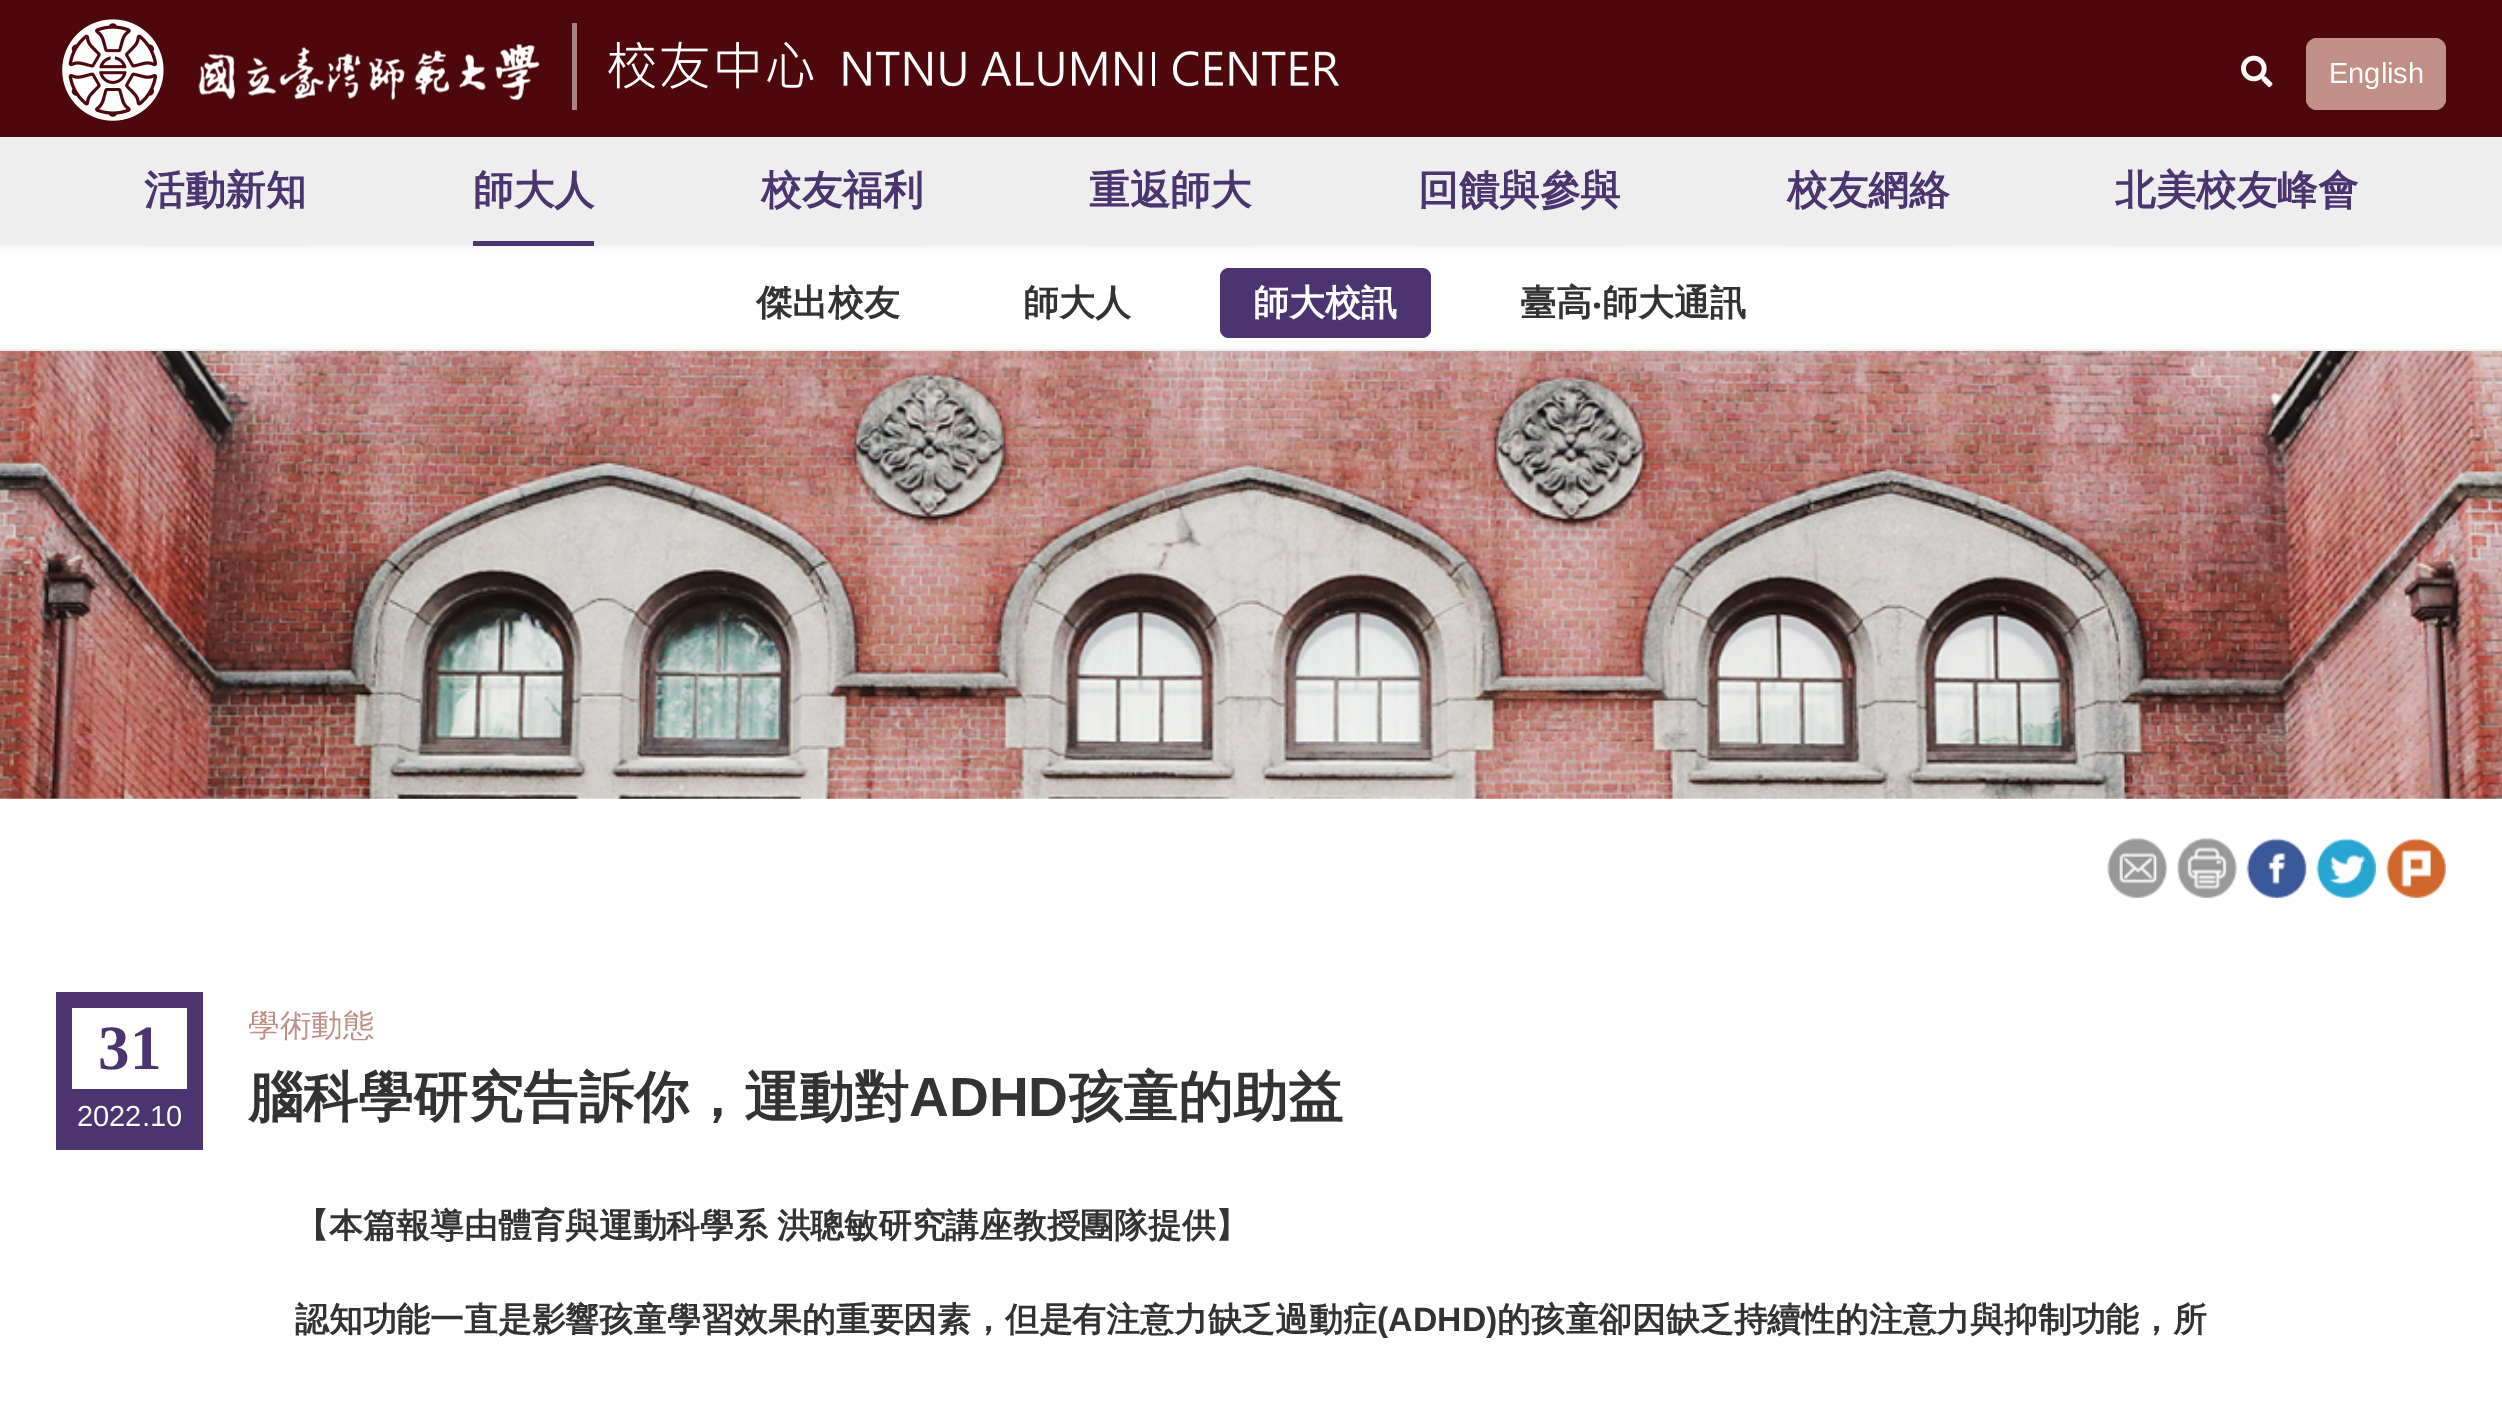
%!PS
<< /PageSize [2502 1403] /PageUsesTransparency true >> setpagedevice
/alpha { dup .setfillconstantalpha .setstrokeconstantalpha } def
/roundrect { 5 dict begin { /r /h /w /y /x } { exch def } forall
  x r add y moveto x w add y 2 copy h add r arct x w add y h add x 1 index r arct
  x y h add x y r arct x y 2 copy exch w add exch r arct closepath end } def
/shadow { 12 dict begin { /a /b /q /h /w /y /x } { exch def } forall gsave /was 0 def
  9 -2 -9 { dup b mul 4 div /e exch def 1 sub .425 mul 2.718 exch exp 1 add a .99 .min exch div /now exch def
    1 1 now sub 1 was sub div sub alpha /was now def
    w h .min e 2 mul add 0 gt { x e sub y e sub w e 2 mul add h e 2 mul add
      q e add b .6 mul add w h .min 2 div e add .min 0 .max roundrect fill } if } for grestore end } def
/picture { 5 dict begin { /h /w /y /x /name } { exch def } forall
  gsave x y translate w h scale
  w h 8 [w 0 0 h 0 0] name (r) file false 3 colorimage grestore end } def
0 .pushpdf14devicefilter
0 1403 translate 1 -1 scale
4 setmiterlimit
1 setgray
0 0 2502 1403 rectfill
0 setgray
0 0 2502 245 0 3.5 0.1 shadow
0.306 0.027 0.043 setrgbcolor
0 0 2502 137 rectfill
(img1.rgb) 62 19 102 102 picture
(img2.rgb) 198 44 342 57 picture
0.655 0.514 0.522 setrgbcolor
572 23 5 87 rectfill
(img3.rgb) 608 41 731 48 picture
(img4.rgb) 2241 55 32 33 picture
0.761 0.561 0.529 setrgbcolor
2306 38 140 72 11 roundrect fill
/LiberationSans-Regular [29 0 0 -29 0 0] selectfont
1 setgray
2329 83 moveto (English) show
0.933 setgray
0 137 2502 108 rectfill
144 245 162 1 rectfill
/WenQuanYiZenHei-Bold [40.5 0 0 -40.5 0 0] selectfont
0.294 0.204 0.439 setrgbcolor
144 204 moveto (活動新知) show
473 241 121 5 rectfill
473 204 moveto (師大人) show
0.933 setgray
761 245 162 1 rectfill
0.294 0.204 0.439 setrgbcolor
761 204 moveto (校友福利) show
0.933 setgray
1089 245 162 1 rectfill
0.294 0.204 0.439 setrgbcolor
1089 204 moveto (重返師大) show
0.933 setgray
1418 245 202 1 rectfill
0.294 0.204 0.439 setrgbcolor
1418 204 moveto (回饋與參與) show
0.933 setgray
1787 245 162 1 rectfill
0.294 0.204 0.439 setrgbcolor
1787 204 moveto (校友網絡) show
0.933 setgray
2115 245 243 1 rectfill
0.294 0.204 0.439 setrgbcolor
2115 204 moveto (北美校友峰會) show
0.933 setgray
0 349 2502 2 rectfill
/WenQuanYiZenHei-Bold [36 0 0 -36 0 0] selectfont
0.2 setgray
756 315 moveto (傑出校友) show
1023 315 moveto (師大人) show
0.294 0.204 0.439 setrgbcolor
1220 268 211 70 9 roundrect fill
1 setgray
1253 315 moveto (師大校訊) show
0.2 setgray
1520 315 moveto (臺高) show
/NotoSans-Bold [36 0 0 -36 0 0] selectfont
1592 315 moveto (‧) show
/WenQuanYiZenHei-Bold [36 0 0 -36 0 0] selectfont
1602 315 moveto (師大通訊) show
(img5.rgb) 0 351 2502 448 picture
(img6.rgb) 2107 837 60 61 picture
(img7.rgb) 2177 837 60 61 picture
(img8.rgb) 2246 838 61 60 picture
(img9.rgb) 2316 838 60 60 picture
(img10.rgb) 2386 838 60 60 picture
0.294 0.204 0.439 setrgbcolor
56 992 147 158 rectfill
1 setgray
72 1008 115 81 rectfill
/LiberationSerif-Bold [63 0 0 -63 0 0] selectfont
0.294 0.204 0.439 setrgbcolor
98 1069 moveto (31) show
/LiberationSans-Regular [29 0 0 -29 0 0] selectfont
1 setgray
77 1126 moveto (2022.10) show
/WenQuanYiZenHei-Medium [31.5 0 0 -31.5 0 0] selectfont
0.761 0.561 0.529 setrgbcolor
248 1036 moveto (學術動態) show
/WenQuanYiZenHei-Bold [55.1 0 0 -55.1 0 0] selectfont
0.2 setgray
248 1116 moveto (腦科學研究告訴你，運動對) show
/LiberationSans-Bold [55.1 0 0 -55.1 0 0] selectfont
909 1116 moveto (ADHD) show
/WenQuanYiZenHei-Bold [55.1 0 0 -55.1 0 0] selectfont
1068 1116 moveto (孩童的助益) show
/WenQuanYiZenHei-Bold [33.75 0 0 -33.75 0 0] selectfont
295 1237 moveto -1 0 32 (【本篇報導由體育與運動科學系 洪聰敏研究講座教授團隊提供】) widthshow
295 1331 moveto 0.05 0 (認知功能一直是影響孩童學習效果的重要因素，但是有注意力缺乏過動症) ashow
/LiberationSans-Bold [33.75 0 0 -33.75 0 0] selectfont
1377 1331 moveto 0.05 0 (\(ADHD\)) ashow
/WenQuanYiZenHei-Bold [33.75 0 0 -33.75 0 0] selectfont
1497 1331 moveto 0.05 0 (的孩童卻因缺乏持續性的注意力與抑制功能，所) ashow
.poppdf14devicefilter showpage
